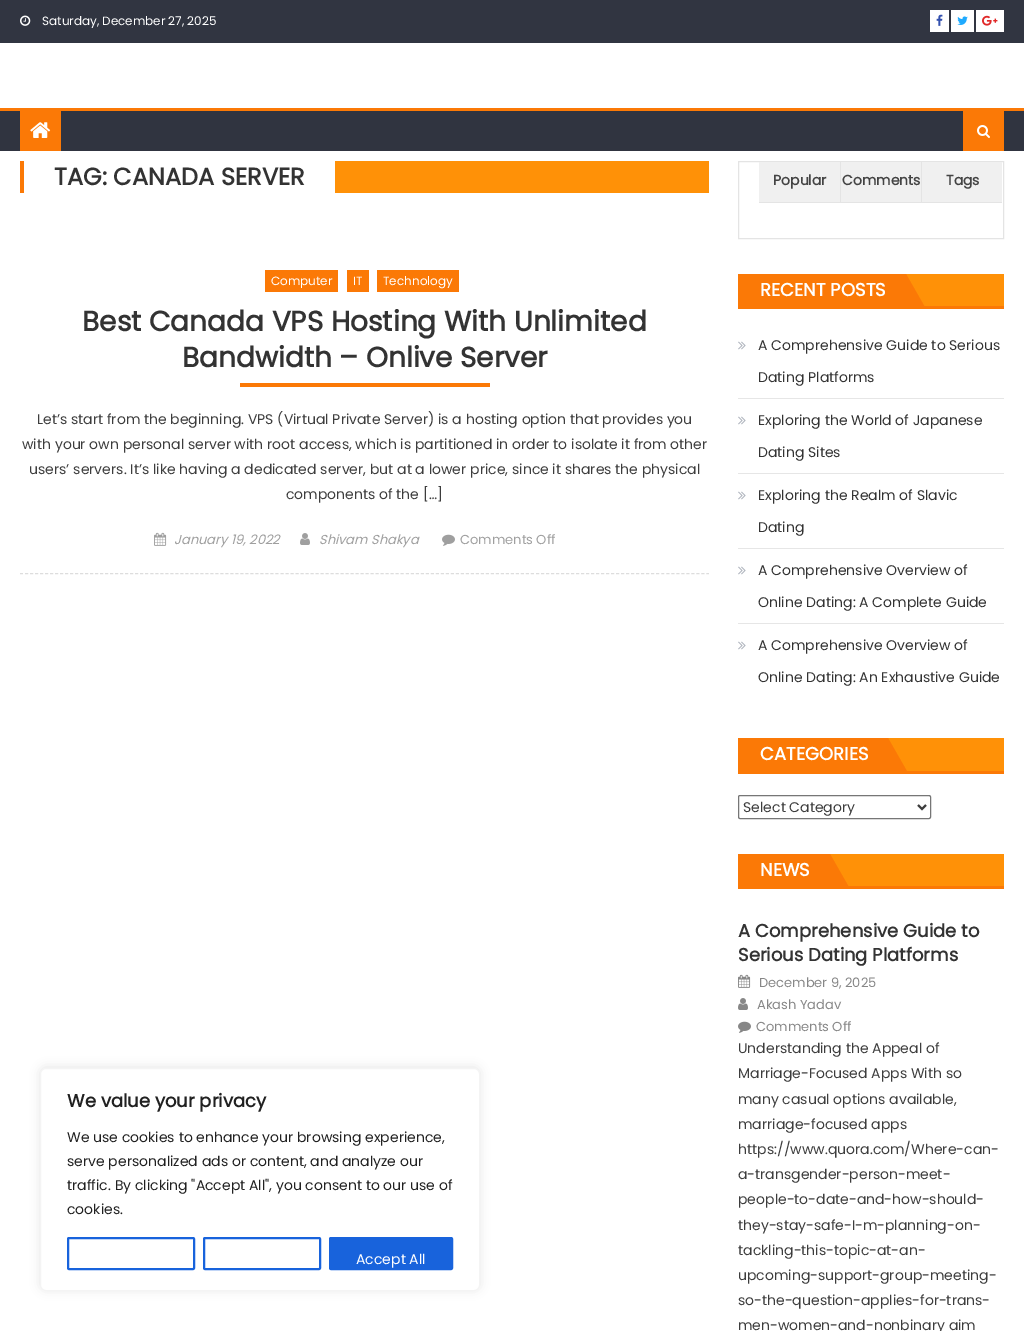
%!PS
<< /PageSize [1024 1331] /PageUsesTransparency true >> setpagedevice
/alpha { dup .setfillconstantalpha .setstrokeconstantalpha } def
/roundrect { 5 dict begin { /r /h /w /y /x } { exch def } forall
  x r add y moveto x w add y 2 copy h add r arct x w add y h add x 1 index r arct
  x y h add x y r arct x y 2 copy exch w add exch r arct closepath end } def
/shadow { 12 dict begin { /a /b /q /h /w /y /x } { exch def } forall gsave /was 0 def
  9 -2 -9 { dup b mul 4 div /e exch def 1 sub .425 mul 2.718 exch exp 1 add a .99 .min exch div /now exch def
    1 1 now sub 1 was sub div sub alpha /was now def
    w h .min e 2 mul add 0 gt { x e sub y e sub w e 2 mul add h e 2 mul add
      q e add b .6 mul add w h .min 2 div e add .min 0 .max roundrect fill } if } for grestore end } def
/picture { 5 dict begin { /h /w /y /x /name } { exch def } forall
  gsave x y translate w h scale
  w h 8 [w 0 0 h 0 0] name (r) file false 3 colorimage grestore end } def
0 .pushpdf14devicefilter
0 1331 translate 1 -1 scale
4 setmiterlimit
1 setgray
0 0 1024 1331 rectfill
0.192 0.208 0.255 setrgbcolor
0 0 1024 43 rectfill
(img1.rgb) 20 15 11 11 picture
/Poppins-Regular [12 0 0 -12 0 0] selectfont
1 setgray
42 25 moveto (Saturday, December 27, 2025) show
930 10 19 22 rectfill
(img2.rgb) 936 14 7 12 picture
951 10 23 22 rectfill
(img3.rgb) 957 16 11 9 picture
976 10 28 22 rectfill
(img4.rgb) 982 15 16 11 picture
0.188 0.204 0.251 setrgbcolor
0 111 1024 40 rectfill
0.984 0.475 0.024 setrgbcolor
0 108 1024 3 rectfill
20 111 41 40 rectfill
(img5.rgb) 30 122 21 16 picture
963 111 41 40 rectfill
(img6.rgb) 977 125 13 13 picture
1 0.569 0.027 setrgbcolor
335 161 374 32 rectfill
0.984 0.475 0.024 setrgbcolor
20 161 4 32 rectfill
/Poppins-Bold [24 0 0 -24 0 0] selectfont
0.2 setgray
54 185 moveto (TAG: CANADA SERVER) show
0.867 setgray
[3 2.01] 0 setdash
newpath 20 573.5 moveto 709 573.5 lineto stroke
0.984 0.475 0.024 setrgbcolor
265 270 73 22 rectfill
/Poppins-Regular [12 0 0 -12 0 0] selectfont
1 setgray
271 285 moveto (Computer) show
0.984 0.475 0.024 setrgbcolor
347 270 22 22 rectfill
1 setgray
353 285 moveto (IT) show
0.984 0.475 0.024 setrgbcolor
377 270 82 22 rectfill
1 setgray
383 285 moveto (Technology) show
/Poppins-Bold [28 0 0 -28 0 0] selectfont
0.2 setgray
82 331 moveto (Best Canada VPS Hosting With Unlimited) show
182 367 moveto (Bandwidth – Onlive Server) show
0.984 0.475 0.024 setrgbcolor
240 383 250 4 rectfill
/Poppins-Regular [14 0 0 -14 0 0] selectfont
0.239 setgray
37 424 moveto (Let’s start from the beginning. VPS \(Virtual Private Server\) is a hosting option that provides you) show
22 449 moveto (with your own personal server with root access, which is partitioned in order to isolate it from other) show
29 474 moveto (users’ servers. It’s like having a dedicated server, but at a lower price, since it shares the physical) show
286 499 moveto (components of the […]) show
(img7.rgb) 154 532 13 14 picture
/Poppins-Italic [13 0 0 -13 0 0] selectfont
0.624 setgray
174 544 moveto (January 19, 2022) show
(img8.rgb) 300 533 10 12 picture
319 544 moveto (Shivam Shakya) show
(img9.rgb) 442 534 13 12 picture
/Poppins-Regular [13 0 0 -13 0 0] selectfont
460 544 moveto (Comments Off) show
0.894 setgray
[] 0 setdash
738.5 161.5 265 77 rectstroke
0.941 setgray
759 162 81 40 rectfill
0.894 setgray
759 202 243 1 rectfill
/Poppins-Bold [14 0 0 -14 0 0] selectfont
0.267 setgray
773 185 moveto (Popular) show
0.941 setgray
841 162 80 40 rectfill
0.894 setgray
840 162 1 41 rectfill
0.267 setgray
842 185 moveto (Comments) show
0.941 setgray
922 162 80 40 rectfill
0.894 setgray
921 162 1 41 rectfill
0.267 setgray
946 185 moveto (Tags) show
1 0.569 0.027 setrgbcolor
906 274 98 32 rectfill
0.984 0.475 0.024 setrgbcolor
738 306 266 3 rectfill
738 274 2 35 rectfill
740 274 166 32 rectfill
/Poppins-Bold [18 0 0 -18 0 0] selectfont
1 setgray
760 296 moveto (RECENT POSTS) show
0.984 0.475 0.024 setrgbcolor
newpath 926 309 moveto 906 309 lineto 906 274 lineto closepath fill
0.902 setgray
738 398 266 1 rectfill
(img10.rgb) 738 341 8 9 picture
/Poppins-Regular [14 0 0 -14 0 0] selectfont
0.2 setgray
758 350 moveto (A Comprehensive Guide to Serious) show
758 382 moveto (Dating Platforms) show
0.902 setgray
738 473 266 1 rectfill
(img10.rgb) 738 416 8 9 picture
0.2 setgray
758 425 moveto (Exploring the World of Japanese) show
758 457 moveto (Dating Sites) show
0.902 setgray
738 548 266 1 rectfill
(img10.rgb) 738 491 8 9 picture
0.2 setgray
758 500 moveto (Exploring the Realm of Slavic) show
758 532 moveto (Dating) show
0.902 setgray
738 623 266 1 rectfill
(img10.rgb) 738 566 8 9 picture
0.2 setgray
758 575 moveto (A Comprehensive Overview of) show
758 607 moveto (Online Dating: A Complete Guide) show
(img10.rgb) 738 641 8 9 picture
758 650 moveto (A Comprehensive Overview of) show
758 682 moveto (Online Dating: An Exhaustive Guide) show
1 0.569 0.027 setrgbcolor
888 738 116 33 rectfill
0.984 0.475 0.024 setrgbcolor
738 771 266 3 rectfill
738 738 2 36 rectfill
740 738 148 33 rectfill
/Poppins-Bold [18 0 0 -18 0 0] selectfont
1 setgray
760 760 moveto (CATEGORIES) show
0.984 0.475 0.024 setrgbcolor
newpath 908 773 moveto 888 773 lineto 888 738 lineto closepath fill
0.463 setgray
738.5 795.5 192 23 1.5 roundrect stroke
0.239 setgray
2 setlinewidth
newpath 918 805 moveto 922 809 lineto 926 805 lineto stroke
/Poppins-Regular [14 0 0 -14 0 0] selectfont
743 812 moveto (Select Category) show
1 0.569 0.027 setrgbcolor
830 854 174 32 rectfill
0.984 0.475 0.024 setrgbcolor
738 886 266 3 rectfill
738 854 2 35 rectfill
740 854 90 32 rectfill
/Poppins-Bold [18 0 0 -18 0 0] selectfont
1 setgray
760 876 moveto (NEWS) show
0.984 0.475 0.024 setrgbcolor
newpath 850 889 moveto 830 889 lineto 830 854 lineto closepath fill
0.2 setgray
738 937 moveto (A Comprehensive Guide to) show
738 961 moveto (Serious Dating Platforms) show
(img11.rgb) 738 974 13 14 picture
/Poppins-Regular [13 0 0 -13 0 0] selectfont
0.529 setgray
759 987 moveto (December 9, 2025) show
(img12.rgb) 738 998 10 12 picture
757 1009 moveto (Akash Yadav) show
(img13.rgb) 738 1021 13 12 picture
756 1031 moveto (Comments Off) show
/Poppins-Regular [14 0 0 -14 0 0] selectfont
0.239 setgray
738 1053 moveto (Understanding the Appeal of) show
738 1078 moveto (Marriage-Focused Apps With so) show
738 1104 moveto (many casual options available,) show
738 1129 moveto (marriage-focused apps) show
738 1154 moveto (https://www.quora.com/Where-can-) show
738 1179 moveto (a-transgender-person-meet-) show
738 1204 moveto (people-to-date-and-how-should-) show
738 1230 moveto (they-stay-safe-I-m-planning-on-) show
738 1255 moveto (tackling-this-topic-at-an-) show
738 1280 moveto (upcoming-support-group-meeting-) show
738 1305 moveto (so-the-question-applies-for-trans-) show
738 1330 moveto (men-women-and-nonbinary aim) show
0.675 0.671 0.671 setrgbcolor
40 1067 440 223 6 5 0.3 shadow
1 setgray
40.5 1068.5 439 222 5.5 roundrect gsave fill grestore
0.957 setgray
1 setlinewidth
stroke
/Poppins-Bold [18 0 0 -18 0 0] selectfont
0.129 setgray
67 1107 moveto (We value your privacy) show
/Poppins-Regular [14 0 0 -14 0 0] selectfont
67 1142 moveto (We use cookies to enhance your browsing experience,) show
67 1166 moveto (serve personalized ads or content, and analyze our) show
67 1190 moveto (traffic. By clicking "Accept All", you consent to our use of) show
67 1214 moveto (cookies.) show
0.094 0.388 0.863 setrgbcolor
2 setlinewidth
68 1238 126 31 1 roundrect stroke
204 1238 116 31 1 roundrect stroke
330 1238 122 31 1 roundrect gsave fill grestore
stroke
1 setgray
356 1264 moveto (Accept All) show
.poppdf14devicefilter showpage
